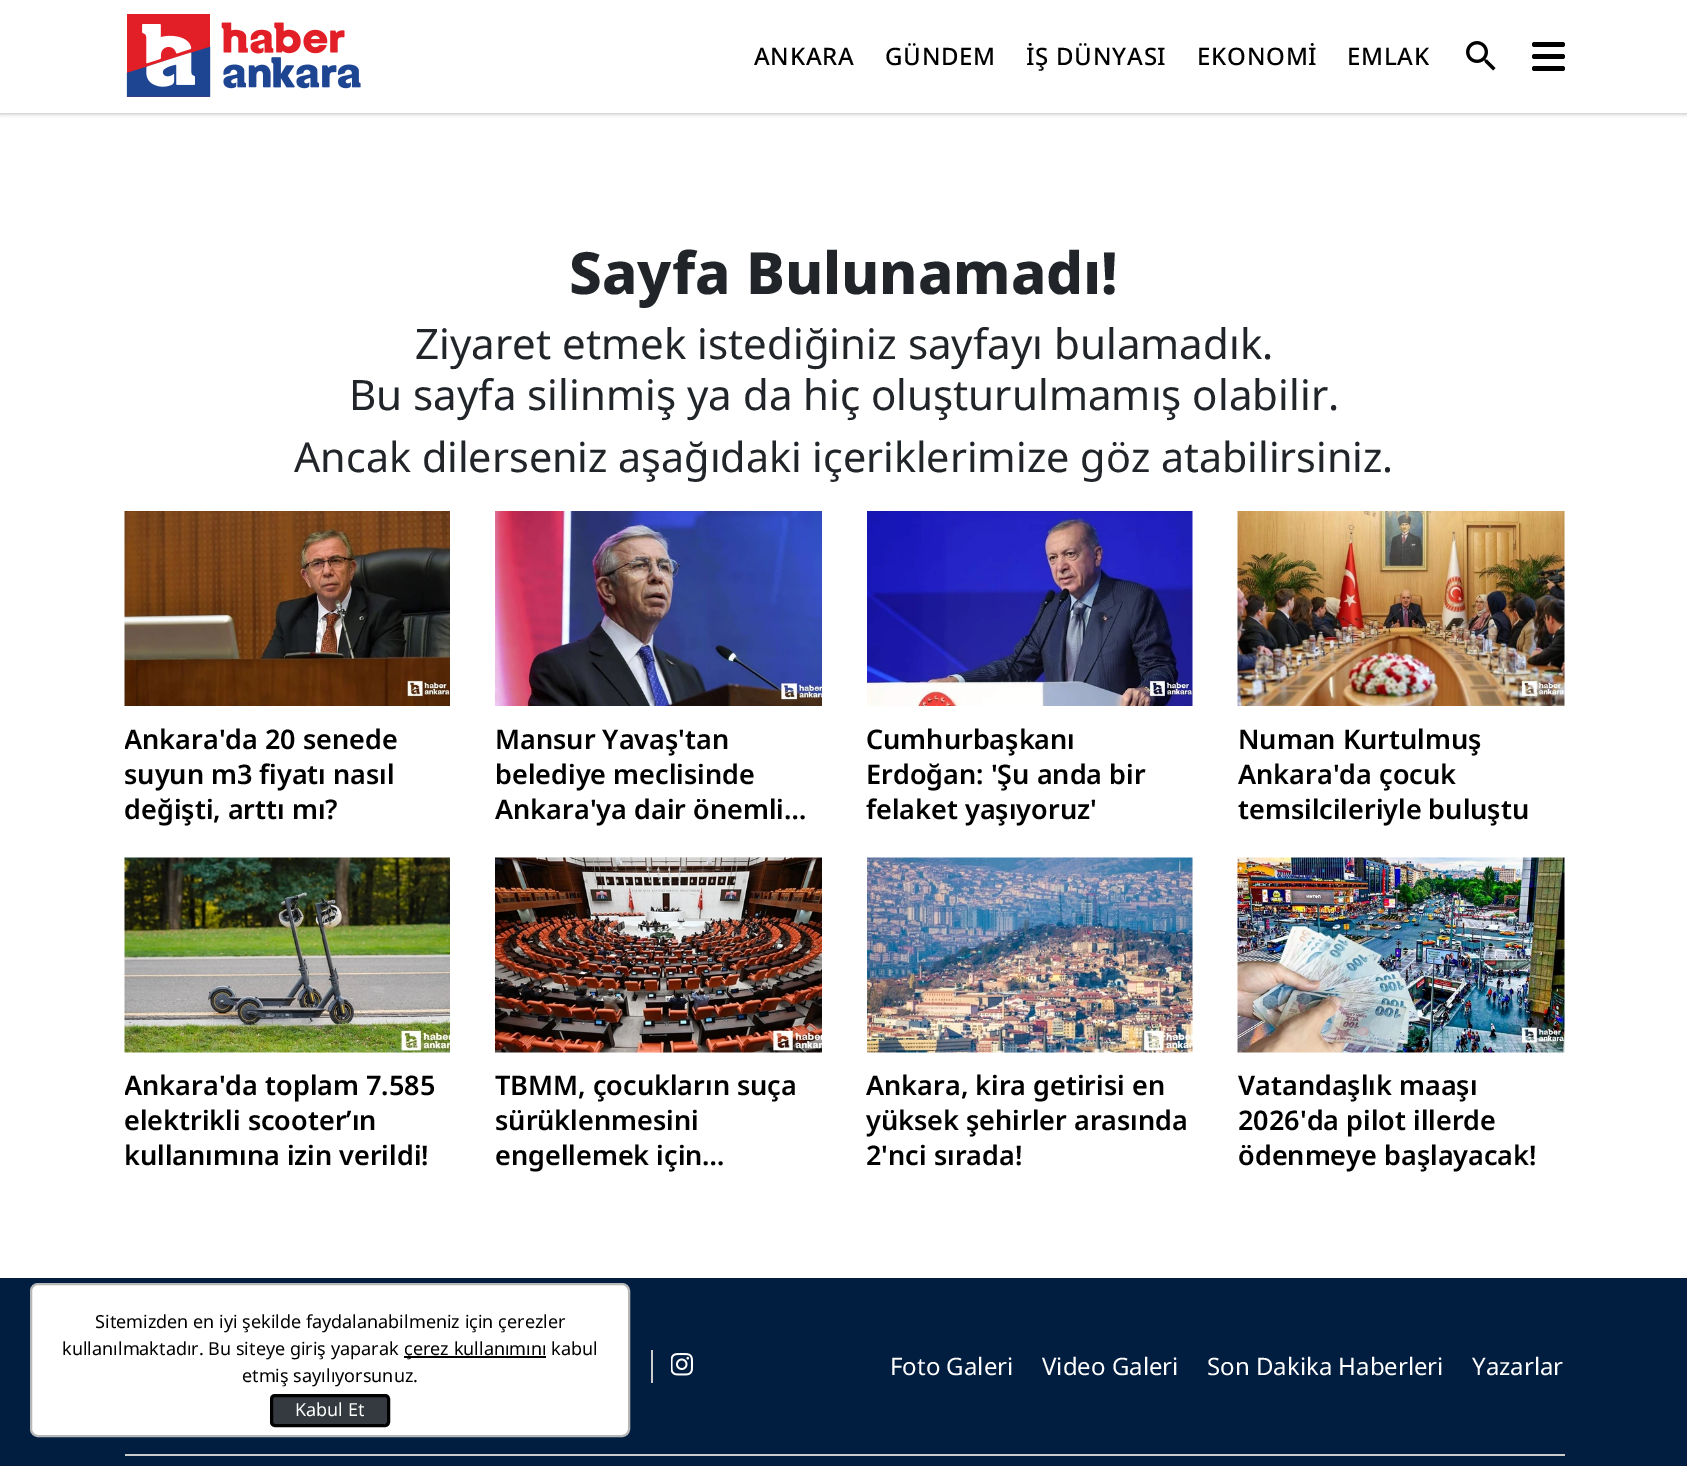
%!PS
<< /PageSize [1687 1466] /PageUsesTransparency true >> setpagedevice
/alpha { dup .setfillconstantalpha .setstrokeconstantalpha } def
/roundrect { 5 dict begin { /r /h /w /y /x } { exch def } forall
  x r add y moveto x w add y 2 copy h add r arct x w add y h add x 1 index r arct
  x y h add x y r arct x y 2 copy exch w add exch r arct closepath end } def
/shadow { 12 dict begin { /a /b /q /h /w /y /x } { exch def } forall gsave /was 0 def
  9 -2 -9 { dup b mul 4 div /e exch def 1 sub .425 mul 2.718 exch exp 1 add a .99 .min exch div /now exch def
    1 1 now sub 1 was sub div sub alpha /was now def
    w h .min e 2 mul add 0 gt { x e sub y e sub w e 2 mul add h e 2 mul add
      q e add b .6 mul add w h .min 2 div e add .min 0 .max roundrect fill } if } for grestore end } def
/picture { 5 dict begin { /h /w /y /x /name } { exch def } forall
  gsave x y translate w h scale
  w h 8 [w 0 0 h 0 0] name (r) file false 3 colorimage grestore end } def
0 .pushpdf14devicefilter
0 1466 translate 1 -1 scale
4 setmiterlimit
1 setgray
0 0 1687 1466 rectfill
0 setgray
0 2 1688 112 0 2 0.25 shadow
1 setgray
0 0 1687 113 rectfill
(img1.rgb) 126 14 235 83 picture
/NotoSans-Medium [24 0 0 -24 0 0] selectfont
0 setgray
754 65 moveto 0.75 0 (ANKARA) ashow
885 65 moveto 0.75 0 (GÜNDEM) ashow
1026 65 moveto 0.75 0 (İŞ DÜNYASI) ashow
1197 65 moveto 0.75 0 (EKONOMİ) ashow
1347 65 moveto 0.75 0 (EMLAK) ashow
(img2.rgb) 1466 41 30 30 picture
1532 54 33 5 2.5 roundrect fill
1532 42 33 5 2.5 roundrect fill
1532 66 33 5 2.5 roundrect fill
/NotoSans-ExtraBold [58.25 0 0 -58.25 0 0] selectfont
0.129 0.145 0.161 setrgbcolor
569 294 moveto (Sayfa Bulunamadı!) show
/NotoSans-Regular [42 0 0 -42 0 0] selectfont
415 359 moveto (Ziyaret etmek istediğiniz sayfayı bulamadık.) show
349 410 moveto (Bu sayfa silinmiş ya da hiç oluşturulmamış olabilir.) show
/NotoSans-Regular [41.3 0 0 -41.3 0 0] selectfont
294 472 moveto (Ancak dilerseniz aşağıdaki içeriklerimize göz atabilirsiniz.) show
(img3.rgb) 124 511 326 195 picture
gsave
125 722 325 106 rectclip
/NotoSans-SemiBold [27 0 0 -27 0 0] selectfont
0 setgray
124 749 moveto (Ankara'da 20 senede) show
grestore
/NotoSans-SemiBold [27 0 0 -27 0 0] selectfont
0 setgray
124 784 moveto (suyun m3 fiyatı nasıl) show
124 819 moveto (değişti, arttı mı?) show
(img4.rgb) 495 511 327 195 picture
495 749 moveto (Mansur Yavaş'tan) show
495 784 moveto (belediye meclisinde) show
495 819 moveto (Ankara'ya dair önemli…) show
(img5.rgb) 867 511 326 195 picture
866 749 moveto (Cumhurbaşkanı) show
866 784 moveto (Erdoğan: 'Şu anda bir) show
866 819 moveto (felaket yaşıyoruz') show
(img6.rgb) 1237 511 328 195 picture
1238 749 moveto (Numan Kurtulmuş) show
1238 784 moveto (Ankara'da çocuk) show
1238 819 moveto (temsilcileriyle buluştu) show
(img7.rgb) 124 857 326 196 picture
gsave
125 1068 325 105 rectclip
124 1095 moveto (Ankara'da toplam 7.585) show
grestore
124 1130 moveto (elektrikli scooter’ın) show
124 1165 moveto (kullanımına izin verildi!) show
(img8.rgb) 495 857 327 196 picture
495 1095 moveto (TBMM, çocukların suça) show
495 1130 moveto (sürüklenmesini) show
495 1165 moveto (engellemek için…) show
(img9.rgb) 867 857 326 196 picture
866 1095 moveto (Ankara, kira getirisi en) show
866 1130 moveto (yüksek şehirler arasında) show
866 1165 moveto (2'nci sırada!) show
(img10.rgb) 1237 857 328 196 picture
1238 1095 moveto (Vatandaşlık maaşı) show
1238 1130 moveto (2026'da pilot illerde) show
1238 1165 moveto (ödenmeye başlayacak!) show
0.004 0.118 0.255 setrgbcolor
0 1278 1687 188 rectfill
1 setgray
31 1284 598 152 7 roundrect gsave fill grestore
0.718 setgray
2 setlinewidth
stroke
/NotoSans-Regular [18 0 0 -18 0 0] selectfont
0 setgray
95 1328 moveto (Sitemizden en iyi şekilde faydalanabilmeniz için çerezler) show
62 1355 moveto (kullanılmaktadır. Bu siteye giriş yaparak) show
404 1356 142 2 rectfill
404 1355 moveto (çerez kullanımını kabul) show
242 1382 moveto (etmiş sayılıyorsunuz.) show
0.204 0.227 0.251 setrgbcolor
271.5 1395.5 117 30 3.5 roundrect gsave fill grestore
0 setgray
3 setlinewidth
stroke
1 setgray
295 1416 moveto (Kabul Et) show
0.8 setgray
125 1454 1440 2 rectfill
651 1350 2 33 rectfill
(img11.rgb) 671 1353 22 23 picture
/NotoSans-Regular [24 0 0 -24 0 0] selectfont
1 setgray
890 1375 moveto (Foto Galeri) show
1042 1375 moveto (Video Galeri) show
1207 1375 moveto (Son Dakika Haberleri) show
1472 1375 moveto (Yazarlar) show
.poppdf14devicefilter showpage
